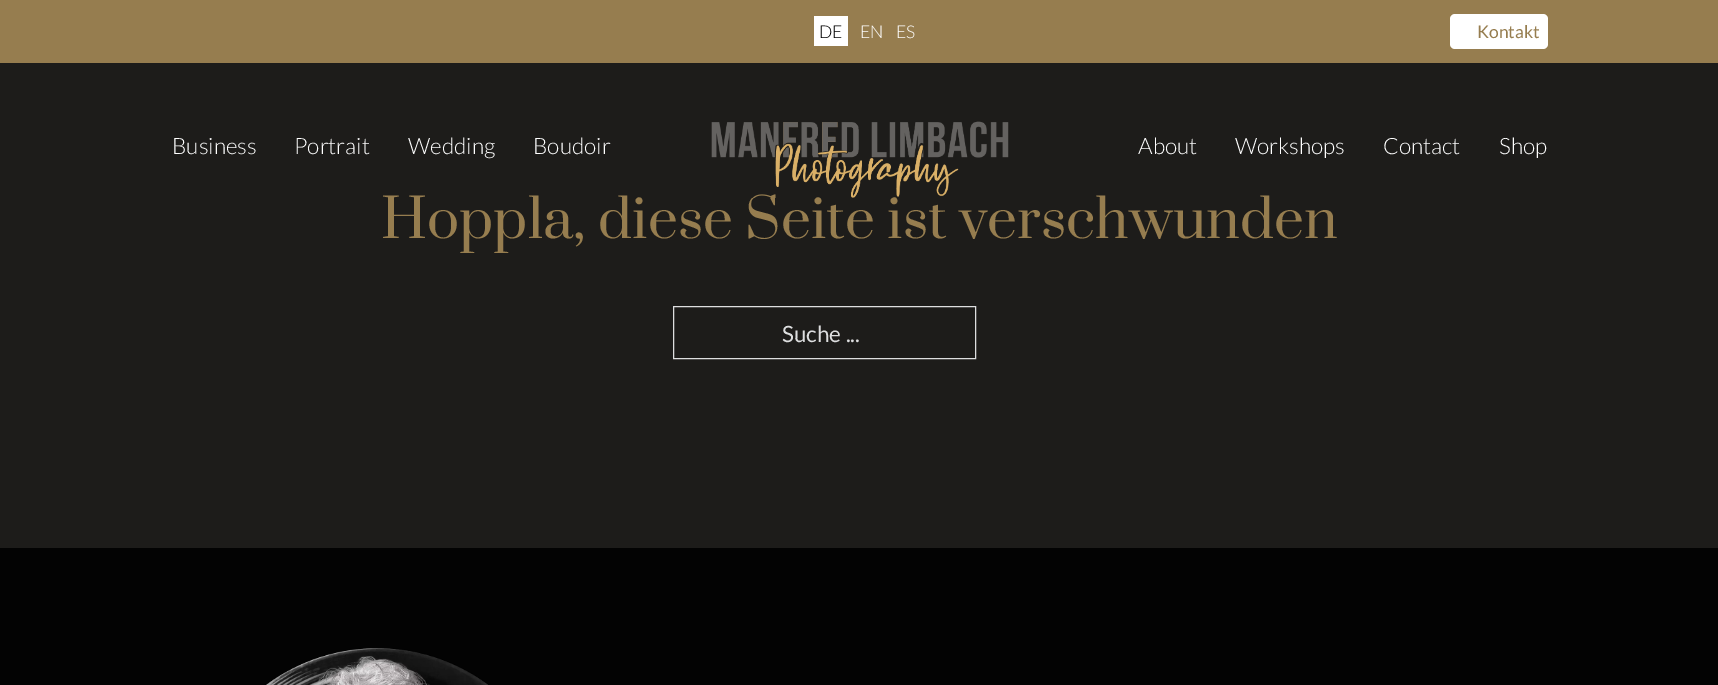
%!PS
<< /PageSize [1718 685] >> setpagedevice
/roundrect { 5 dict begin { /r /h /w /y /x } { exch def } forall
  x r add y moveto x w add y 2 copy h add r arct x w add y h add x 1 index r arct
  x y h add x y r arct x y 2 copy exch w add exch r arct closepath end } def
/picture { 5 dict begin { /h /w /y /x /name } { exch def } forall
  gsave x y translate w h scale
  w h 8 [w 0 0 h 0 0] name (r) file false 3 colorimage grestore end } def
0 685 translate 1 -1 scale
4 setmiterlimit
0.114 0.11 0.102 setrgbcolor
0 0 1718 685 rectfill
0.588 0.49 0.31 setrgbcolor
0 0 1718 63 rectfill
1 setgray
814 16 34 30 rectfill
/Lato-Light [17.5 0 0 -17.5 0 0] selectfont
0 setgray
819 38 moveto (DE) show
1 setgray
860 38 moveto (EN) show
896 38 moveto (ES) show
1450 14 98 35 5 roundrect fill
/Lato-Regular [17.5 0 0 -17.5 0 0] selectfont
0.588 0.49 0.31 setrgbcolor
1477 38 moveto (Kontakt) show
/Prata-Regular [53.25 0 0 -53.25 0 0] selectfont
381 238 moveto (Hoppla, diese Seite ist verschwunden) show
(img1.rgb) 711 121 298 77 picture
/Lato-Light [22.5 0 0 -22.5 0 0] selectfont
1 setgray
172 154 moveto (Business) show
294 154 moveto (Portrait) show
408 154 moveto (Wedding) show
533 154 moveto (Boudoir) show
1138 154 moveto (About) show
1235 154 moveto (Workshops) show
1383 154 moveto (Contact) show
1499 154 moveto (Shop) show
0.867 0.871 0.875 setrgbcolor
673.5 306.5 302 52 rectstroke
/Lato-Regular [22.5 0 0 -22.5 0 0] selectfont
782 342 moveto (Suche ...) show
0.012 setgray
0 548 1718 137 rectfill
(img2.rgb) 266 648 222 37 picture
showpage
